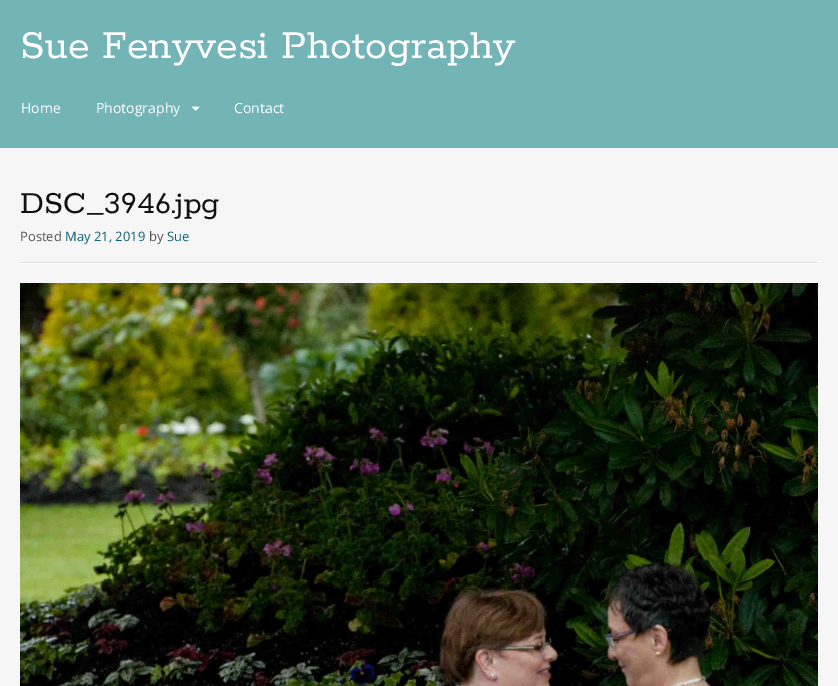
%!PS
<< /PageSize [838 686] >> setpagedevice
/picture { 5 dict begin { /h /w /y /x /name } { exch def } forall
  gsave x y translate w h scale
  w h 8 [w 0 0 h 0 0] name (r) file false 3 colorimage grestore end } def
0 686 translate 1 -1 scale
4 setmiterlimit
0.965 setgray
0 0 838 686 rectfill
0.451 0.706 0.718 setrgbcolor
0 0 838 148 rectfill
/Rokkitt-Regular [44 0 0 -44 0 0] selectfont
1 setgray
20 58 moveto (Sue Fenyvesi Photography) show
/OpenSans-Regular [14 0 0 -14 0 0] selectfont
21 113 moveto (Home) show
96 113 moveto (Photography) show
(img1.rgb) 192 106 8 5 picture
234 113 moveto (Contact) show
20 263 798 1 rectfill
0.867 setgray
20 262 798 1 rectfill
/Rokkitt-Regular [34 0 0 -34 0 0] selectfont
0.067 setgray
20 213 moveto (DSC_3946.jpg) show
/OpenSans-Regular [13 0 0 -13 0 0] selectfont
0.333 setgray
20 241 moveto (Posted) show
0.063 0.38 0.467 setrgbcolor
65 241 moveto (May 21, 2019) show
0.333 setgray
149 241 moveto (by) show
0.063 0.38 0.467 setrgbcolor
167 241 moveto (Sue) show
(img2.rgb) 20 283 798 403 picture
showpage
